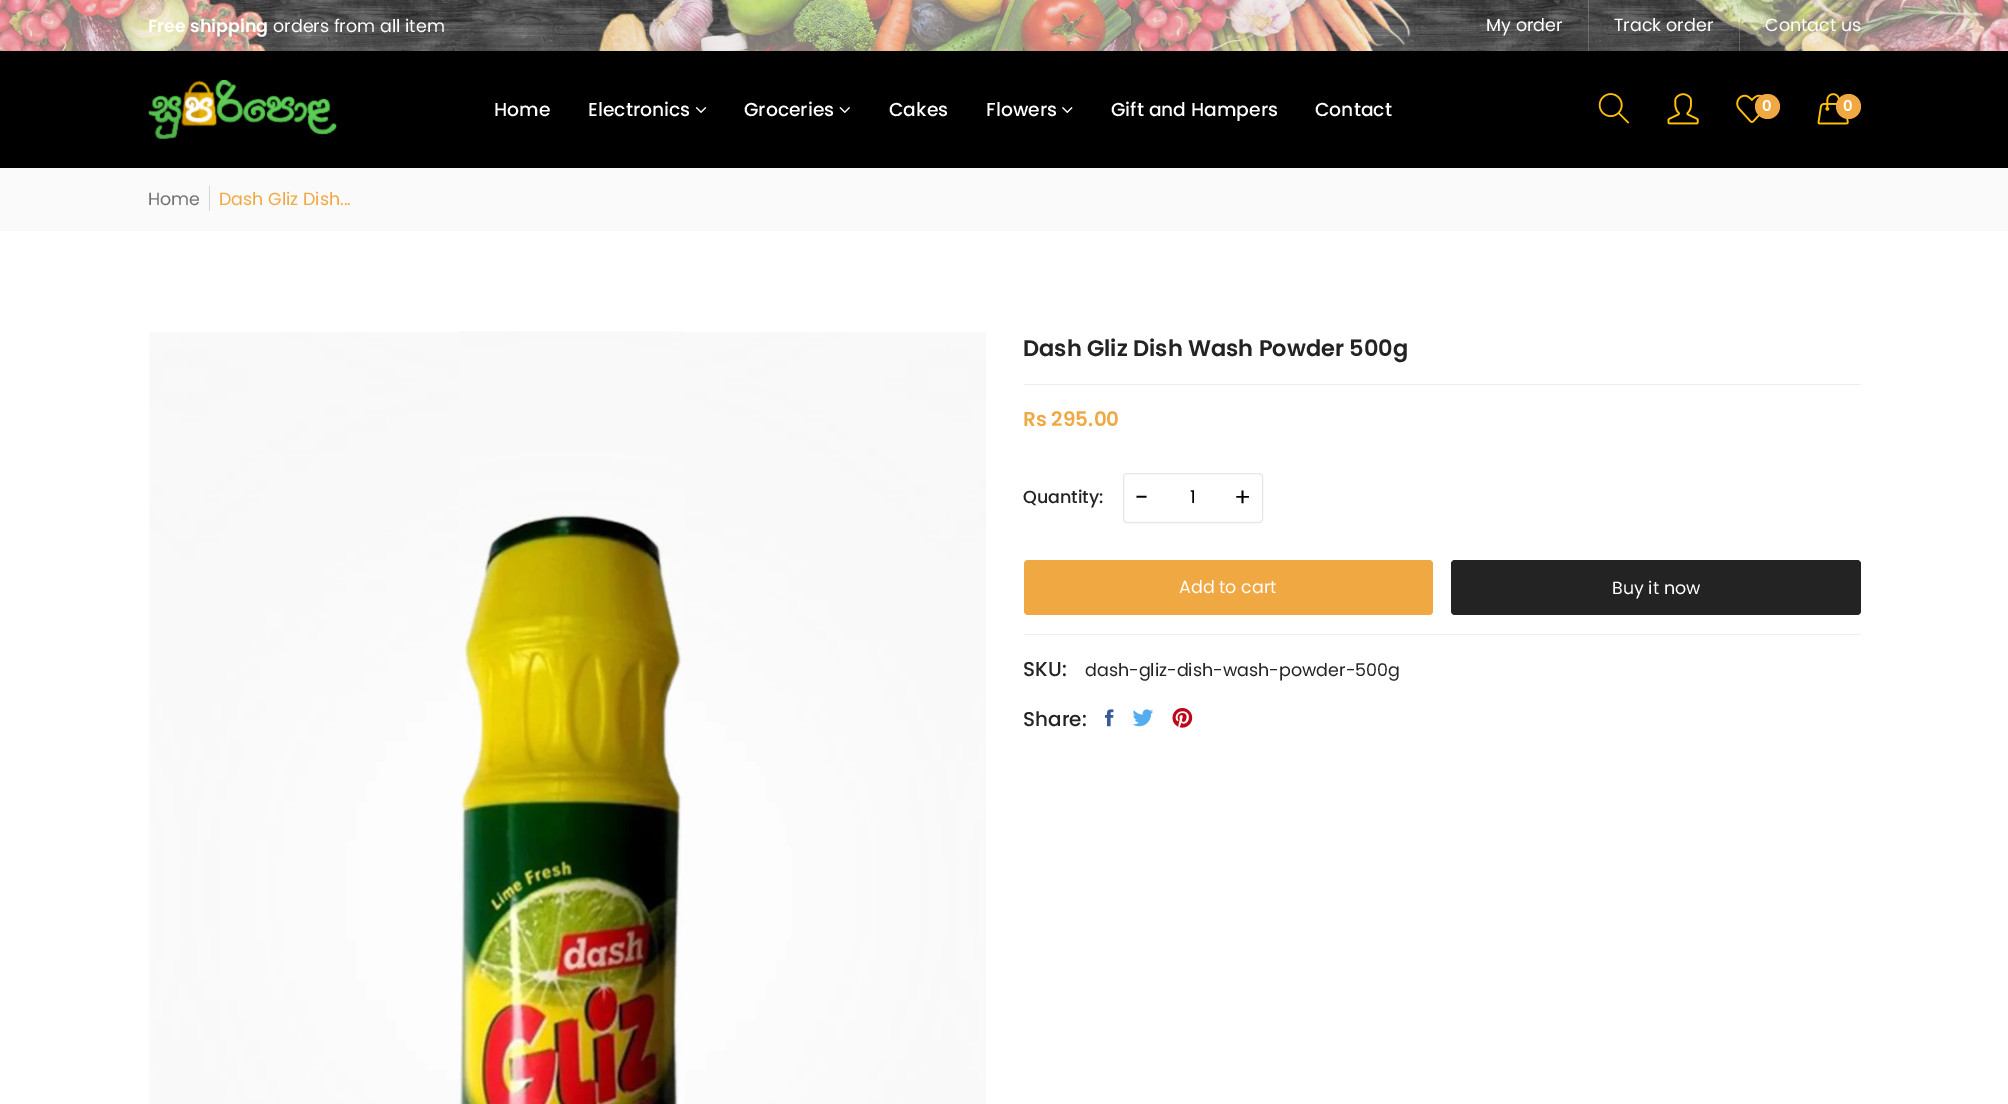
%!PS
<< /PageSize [2008 1104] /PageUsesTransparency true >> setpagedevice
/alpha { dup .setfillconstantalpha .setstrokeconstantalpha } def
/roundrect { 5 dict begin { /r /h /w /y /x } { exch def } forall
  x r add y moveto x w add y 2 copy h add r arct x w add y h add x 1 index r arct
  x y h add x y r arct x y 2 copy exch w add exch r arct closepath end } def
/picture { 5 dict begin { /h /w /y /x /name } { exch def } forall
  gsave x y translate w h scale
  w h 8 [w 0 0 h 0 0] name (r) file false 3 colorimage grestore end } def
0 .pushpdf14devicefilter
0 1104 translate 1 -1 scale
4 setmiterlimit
1 setgray
0 0 2008 1104 rectfill
(img1.rgb) 0 0 2008 51 picture
/Poppins-SemiBold [17.5 0 0 -17.5 0 0] selectfont
148 32 moveto (Free shipping) show
/Poppins-Regular [17.5 0 0 -17.5 0 0] selectfont
273 32 moveto (orders from all item) show
1486 31 moveto (My order) show
0.2 alpha
1588 0 1 51 rectfill
1 alpha
1614 31 moveto (Track order) show
0.2 alpha
1739 0 1 51 rectfill
1 alpha
1765 31 moveto (Contact us) show
0 setgray
0 51 2008 117 rectfill
(img2.rgb) 148 80 189 59 picture
/Poppins-Medium [18.75 0 0 -18.75 0 0] selectfont
1 setgray
494 116 moveto (Home) show
588 116 moveto (Electronics) show
(img3.rgb) 695 107 12 6 picture
744 116 moveto (Groceries) show
(img4.rgb) 839 107 11 6 picture
889 116 moveto (Cakes) show
986 116 moveto (Flowers) show
(img5.rgb) 1062 107 11 6 picture
1111 116 moveto (Gift and Hampers) show
1315 116 moveto (Contact) show
(img6.rgb) 1598 93 32 31 picture
(img7.rgb) 1667 93 32 32 picture
(img8.rgb) 1736 94 27 29 picture
0.941 0.659 0.263 setrgbcolor
newpath 1767.5 106.5 12.5 0 360 arc closepath fill
/Poppins-SemiBold [15 0 0 -15 0 0] selectfont
1 setgray
1762 111 moveto (0) show
(img9.rgb) 1817 93 32 32 picture
0.941 0.659 0.263 setrgbcolor
newpath 1848.5 106.5 12.5 0 360 arc closepath fill
1 setgray
1843 111 moveto (0) show
0.98 setgray
0 168 2008 63 rectfill
/Poppins-Regular [17.5 0 0 -17.5 0 0] selectfont
0.443 setgray
148 205 moveto (Home) show
0.839 setgray
209 186 1 25 rectfill
0.941 0.659 0.263 setrgbcolor
219 205 moveto (Dash Gliz Dish...) show
(img10.rgb) 149 332 837 772 picture
(img11.rgb) 459 331 226 773 picture
0.929 setgray
1024 384 837 1 rectfill
/Poppins-SemiBold [22.5 0 0 -22.5 0 0] selectfont
0.137 setgray
1023 356 moveto (Dash Gliz Dish Wash Powder 500g) show
/Poppins-SemiBold [20 0 0 -20 0 0] selectfont
0.941 0.659 0.263 setrgbcolor
1023 426 moveto (Rs 295.00) show
/Poppins-Medium [17.5 0 0 -17.5 0 0] selectfont
0.137 setgray
1023 503 moveto (Quantity:) show
0.902 setgray
1123.5 473.5 139 49 3.5 roundrect stroke
/Poppins-Regular [25 0 0 -25 0 0] selectfont
0 setgray
1135 506 moveto (-) show
/Poppins-Regular [17.5 0 0 -17.5 0 0] selectfont
1190 503 moveto (1) show
/Poppins-Regular [25 0 0 -25 0 0] selectfont
1234 506 moveto (+) show
0.941 0.659 0.263 setrgbcolor
1024 560 409 55 4 roundrect fill
/Poppins-Regular [17.5 0 0 -17.5 0 0] selectfont
1 setgray
1179 593 moveto (Add to cart) show
0.137 setgray
1451 560 410 55 4 roundrect fill
1 setgray
1612 594 moveto (Buy it now) show
0.929 setgray
1024 634 837 1 rectfill
/Poppins-Medium [20 0 0 -20 0 0] selectfont
0.137 setgray
1023 676 moveto (SKU:) show
/Poppins-Regular [17.5 0 0 -17.5 0 0] selectfont
1085 676 moveto (dash-gliz-dish-wash-powder-500g) show
/Poppins-Medium [20 0 0 -20 0 0] selectfont
1023 726 moveto (Share:) show
(img12.rgb) 1105 709 9 18 picture
(img13.rgb) 1132 709 22 18 picture
(img14.rgb) 1172 708 21 20 picture
.poppdf14devicefilter showpage
